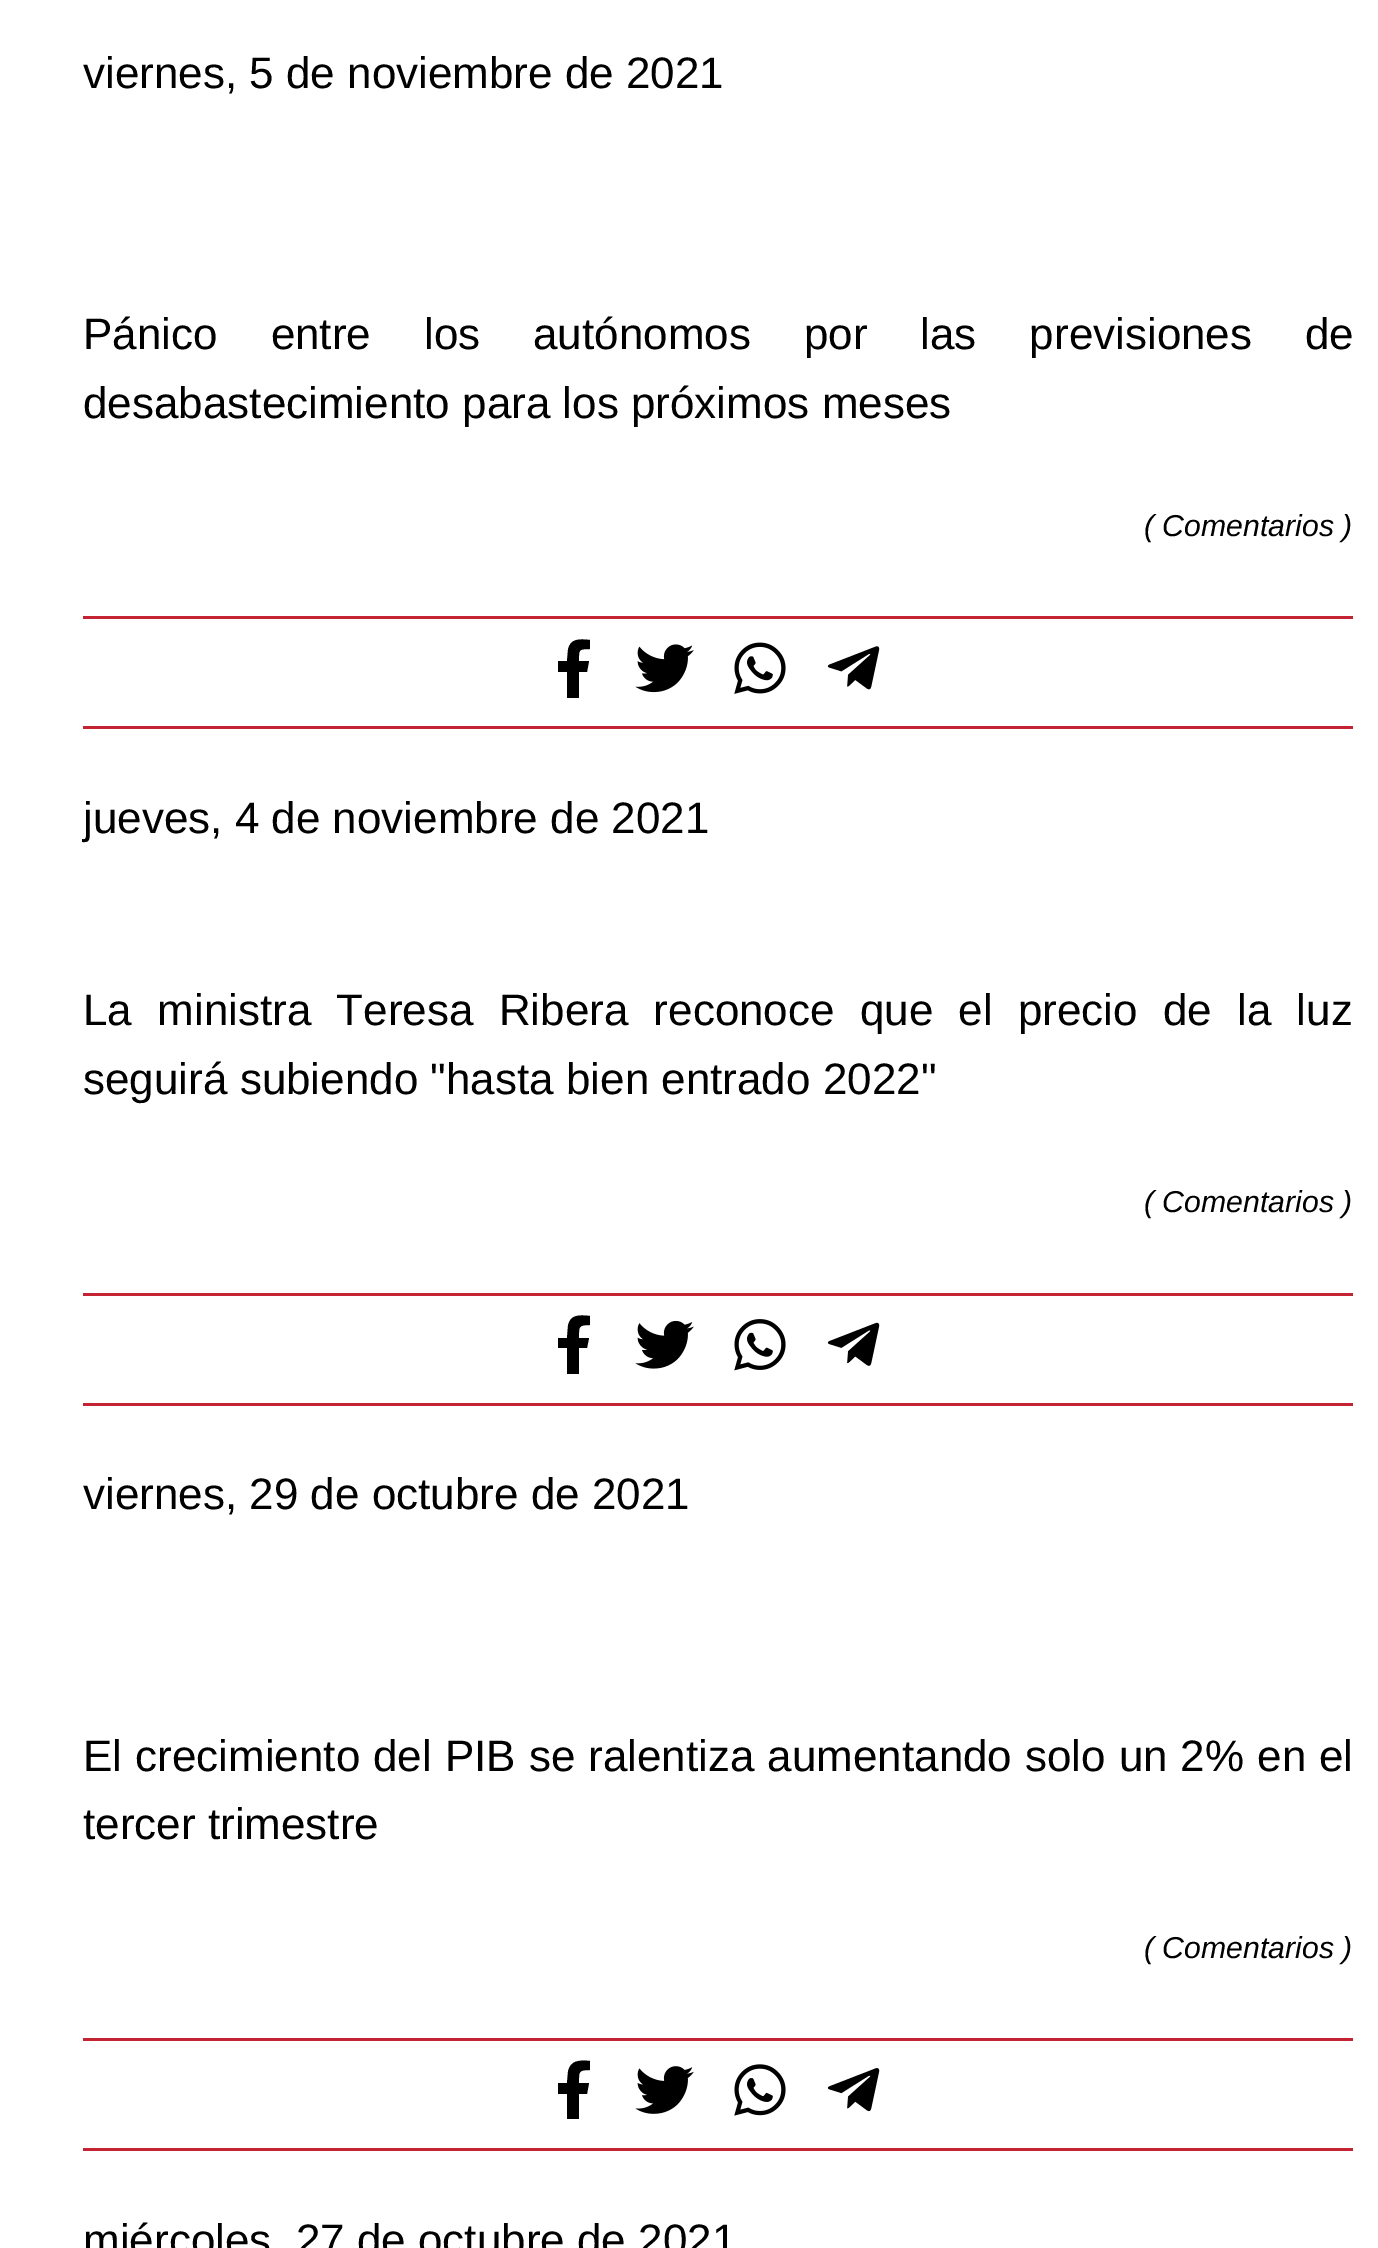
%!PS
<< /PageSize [1378 2248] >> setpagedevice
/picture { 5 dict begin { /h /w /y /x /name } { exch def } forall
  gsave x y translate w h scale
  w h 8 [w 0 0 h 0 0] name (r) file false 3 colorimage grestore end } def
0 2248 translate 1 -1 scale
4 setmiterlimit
1 setgray
0 0 1378 2248 rectfill
/LiberationSans-Regular [44 0 0 -44 0 0] selectfont
0 setgray
83 88 moveto (viernes, 5 de noviembre de 2021) show
83 349 moveto 40.75 0 32 (Pánico entre los autónomos por las previsiones de) widthshow
83 418 moveto (desabastecimiento para los próximos meses) show
/LiberationSans-Italic [30.25 0 0 -30.25 0 0] selectfont
1144 536 moveto (\( Comentarios \)) show
0.769 0.137 0.204 setrgbcolor
83 616 1270 3 rectfill
83 726 1270 3 rectfill
0 setgray
newpath 587 672 moveto 579 672 lineto 579 698 lineto 567 698 lineto 567 672 lineto 558 672 lineto 558 661 lineto 567 661 lineto 568 650 lineto 570 638 580 639 590 640 curveto 590 649 lineto 578 649 579 650 579 661 curveto 589 661 lineto closepath fill
(img1.rgb) 635 644 59 49 picture
(img2.rgb) 734 642 52 52 picture
(img3.rgb) 827 646 53 44 picture
/LiberationSans-Regular [44 0 0 -44 0 0] selectfont
83 833 moveto (jueves, 4 de noviembre de 2021) show
83 1025 moveto 13 0 32 (La ministra Teresa Ribera reconoce que el precio de la luz) widthshow
83 1094 moveto (seguirá subiendo "hasta bien entrado 2022") show
/LiberationSans-Italic [30.25 0 0 -30.25 0 0] selectfont
1144 1212 moveto (\( Comentarios \)) show
0.769 0.137 0.204 setrgbcolor
83 1293 1270 3 rectfill
83 1403 1270 3 rectfill
0 setgray
newpath 587 1348 moveto 579 1348 lineto 579 1374 lineto 567 1374 lineto 567 1348 lineto 558 1348 lineto 558 1338 lineto 567 1338 lineto 568 1326 lineto 570 1314 580 1315 590 1316 curveto 590 1325 lineto 578 1325 579 1327 579 1338 curveto 589 1338 lineto closepath fill
(img4.rgb) 635 1320 59 49 picture
(img5.rgb) 734 1319 52 52 picture
(img6.rgb) 827 1322 53 44 picture
/LiberationSans-Regular [44 0 0 -44 0 0] selectfont
83 1509 moveto (viernes, 29 de octubre de 2021) show
83 1771 moveto 0.75 0 32 (El crecimiento del PIB se ralentiza aumentando solo un 2% en el) widthshow
83 1839 moveto (tercer trimestre) show
/LiberationSans-Italic [30.25 0 0 -30.25 0 0] selectfont
1144 1958 moveto (\( Comentarios \)) show
0.769 0.137 0.204 setrgbcolor
83 2038 1270 3 rectfill
83 2148 1270 3 rectfill
0 setgray
newpath 587 2094 moveto 579 2094 lineto 579 2119 lineto 567 2119 lineto 567 2094 lineto 558 2094 lineto 558 2083 lineto 567 2083 lineto 568 2072 lineto 570 2060 580 2060 590 2061 curveto 590 2070 lineto 578 2070 579 2072 579 2083 curveto 589 2083 lineto closepath fill
(img7.rgb) 635 2066 59 48 picture
(img8.rgb) 734 2064 52 52 picture
(img9.rgb) 827 2068 53 44 picture
/LiberationSans-Regular [44 0 0 -44 0 0] selectfont
83 2255 moveto (miércoles, 27 de octubre de 2021) show
showpage
